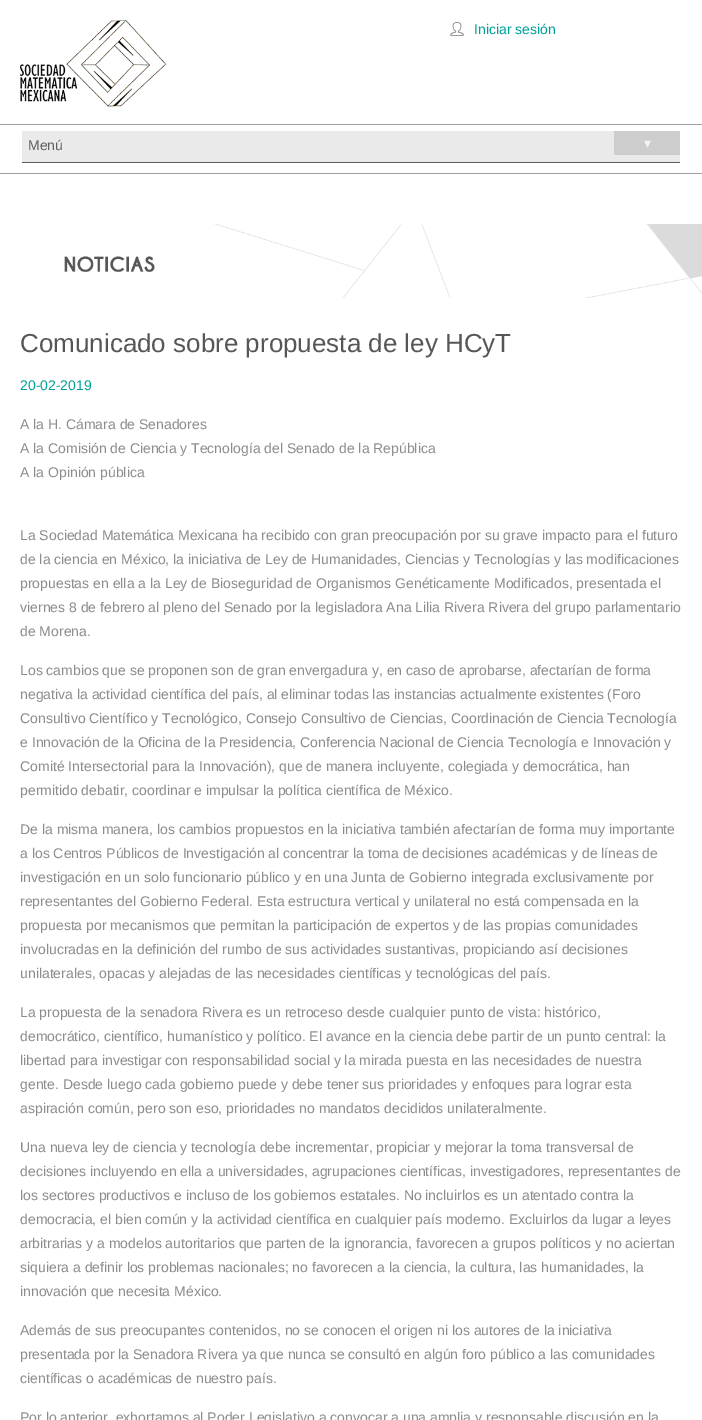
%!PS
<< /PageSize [702 1420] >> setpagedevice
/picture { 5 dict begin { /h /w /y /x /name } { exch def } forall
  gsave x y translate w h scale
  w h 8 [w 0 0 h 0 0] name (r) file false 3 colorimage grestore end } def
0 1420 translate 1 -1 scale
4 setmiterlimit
1 setgray
0 0 702 1420 rectfill
(img1.rgb) 20 20 147 87 picture
(img2.rgb) 450 22 14 14 picture
/LiberationSans-Regular [14 0 0 -14 0 0] selectfont
0 0.627 0.6 setrgbcolor
474 34 moveto (Iniciar sesión) show
0.627 setgray
0 124 702 1 rectfill
0 173 702 1 rectfill
0.918 setgray
22 131 658 31 rectfill
0.388 0.369 0.369 setrgbcolor
22 162 658 1 rectfill
28 150 moveto (Menú) show
0.804 setgray
614 131 66 24 rectfill
/DejaVuSans-Regular [14 0 0 -14 0 0] selectfont
0.953 setgray
644 148 moveto (▾) show
(img3.rgb) 64 224 638 74 picture
/LiberationSans-Regular [26 0 0 -26 0 0] selectfont
0.337 setgray
20 352 moveto (Comunicado sobre propuesta de ley HCyT) show
/LiberationSans-Regular [14 0 0 -14 0 0] selectfont
0 0.627 0.6 setrgbcolor
20 390 moveto (20-02-2019) show
0.549 setgray
20 429 moveto (A la H. Cámara de Senadores) show
20 453 moveto (A la Comisión de Ciencia y Tecnología del Senado de la República) show
20 477 moveto (A la Opinión pública) show
20 540 moveto (La Sociedad Matemática Mexicana ha recibido con gran preocupación por su grave impacto para el futuro) show
20 564 moveto (de la ciencia en México, la iniciativa de Ley de Humanidades, Ciencias y Tecnologías y las modificaciones) show
20 588 moveto (propuestas en ella a la Ley de Bioseguridad de Organismos Genéticamente Modificados, presentada el) show
20 612 moveto (viernes 8 de febrero al pleno del Senado por la legisladora Ana Lilia Rivera Rivera del grupo parlamentario) show
20 636 moveto (de Morena.) show
20 675 moveto (Los cambios que se proponen son de gran envergadura y, en caso de aprobarse, afectarían de forma) show
20 699 moveto (negativa la actividad científica del país, al eliminar todas las instancias actualmente existentes \(Foro) show
20 723 moveto (Consultivo Científico y Tecnológico, Consejo Consultivo de Ciencias, Coordinación de Ciencia Tecnología) show
20 747 moveto (e Innovación de la Oficina de la Presidencia, Conferencia Nacional de Ciencia Tecnología e Innovación y) show
20 771 moveto (Comité Intersectorial para la Innovación\), que de manera incluyente, colegiada y democrática, han) show
20 795 moveto (permitido debatir, coordinar e impulsar la política científica de México.) show
20 834 moveto (De la misma manera, los cambios propuestos en la iniciativa también afectarían de forma muy importante) show
20 858 moveto (a los Centros Públicos de Investigación al concentrar la toma de decisiones académicas y de líneas de) show
20 882 moveto (investigación en un solo funcionario público y en una Junta de Gobierno integrada exclusivamente por) show
20 906 moveto (representantes del Gobierno Federal. Esta estructura vertical y unilateral no está compensada en la) show
20 930 moveto (propuesta por mecanismos que permitan la participación de expertos y de las propias comunidades) show
20 954 moveto (involucradas en la definición del rumbo de sus actividades sustantivas, propiciando así decisiones) show
20 978 moveto (unilaterales, opacas y alejadas de las necesidades científicas y tecnológicas del país.) show
20 1017 moveto (La propuesta de la senadora Rivera es un retroceso desde cualquier punto de vista: histórico,) show
20 1041 moveto (democrático, científico, humanístico y político. El avance en la ciencia debe partir de un punto central: la) show
20 1065 moveto (libertad para investigar con responsabilidad social y la mirada puesta en las necesidades de nuestra) show
20 1089 moveto (gente. Desde luego cada gobierno puede y debe tener sus prioridades y enfoques para lograr esta) show
20 1113 moveto (aspiración común, pero son eso, prioridades no mandatos decididos unilateralmente.) show
20 1152 moveto (Una nueva ley de ciencia y tecnología debe incrementar, propiciar y mejorar la toma transversal de) show
20 1176 moveto (decisiones incluyendo en ella a universidades, agrupaciones científicas, investigadores, representantes de) show
20 1200 moveto (los sectores productivos e incluso de los gobiernos estatales. No incluirlos es un atentado contra la) show
20 1224 moveto (democracia, el bien común y la actividad científica en cualquier país moderno. Excluirlos da lugar a leyes) show
20 1248 moveto (arbitrarias y a modelos autoritarios que parten de la ignorancia, favorecen a grupos políticos y no aciertan) show
20 1272 moveto (siquiera a definir los problemas nacionales; no favorecen a la ciencia, la cultura, las humanidades, la) show
20 1296 moveto (innovación que necesita México.) show
20 1335 moveto (Además de sus preocupantes contenidos, no se conocen el origen ni los autores de la iniciativa) show
20 1359 moveto (presentada por la Senadora Rivera ya que nunca se consultó en algún foro público a las comunidades) show
20 1383 moveto (científicas o académicas de nuestro país.) show
20 1422 moveto (Por lo anterior, exhortamos al Poder Legislativo a convocar a una amplia y responsable discusión en la) show
showpage
